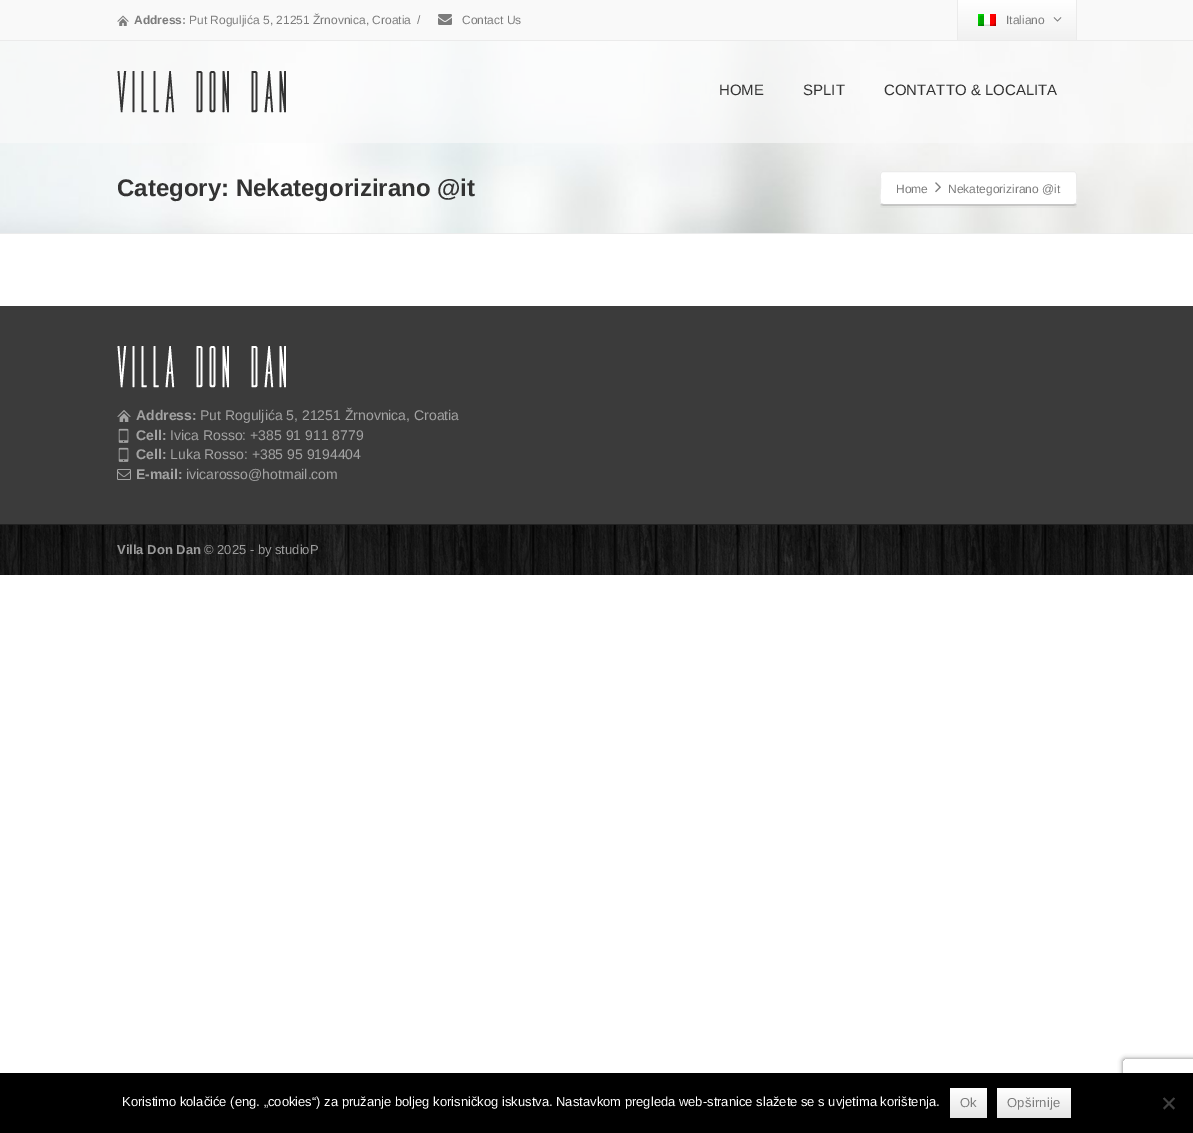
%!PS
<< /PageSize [1193 1133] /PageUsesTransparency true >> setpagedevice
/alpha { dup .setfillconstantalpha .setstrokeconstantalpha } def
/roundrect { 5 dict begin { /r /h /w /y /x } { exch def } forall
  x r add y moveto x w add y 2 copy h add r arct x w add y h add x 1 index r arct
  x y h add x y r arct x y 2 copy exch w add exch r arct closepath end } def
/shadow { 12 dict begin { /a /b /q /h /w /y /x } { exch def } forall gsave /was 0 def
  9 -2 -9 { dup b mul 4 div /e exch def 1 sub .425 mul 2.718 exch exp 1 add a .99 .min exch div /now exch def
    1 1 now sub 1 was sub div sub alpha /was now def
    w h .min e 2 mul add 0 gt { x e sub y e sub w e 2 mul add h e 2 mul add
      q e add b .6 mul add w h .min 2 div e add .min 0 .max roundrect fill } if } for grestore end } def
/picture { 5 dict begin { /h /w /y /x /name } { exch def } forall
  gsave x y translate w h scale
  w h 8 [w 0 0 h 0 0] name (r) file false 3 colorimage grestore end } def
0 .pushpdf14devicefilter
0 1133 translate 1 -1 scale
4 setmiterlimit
1 setgray
0 0 1193 1133 rectfill
0.976 setgray
0 0 1193 40 rectfill
0.922 setgray
0 40 1193 1 rectfill
(img1.rgb) 117 15 12 11 picture
/LiberationSans-Bold [12 0 0 -12 0 0] selectfont
0.486 setgray
134 24 moveto (Address:) show
/LiberationSans-Regular [12 0 0 -12 0 0] selectfont
189 24 moveto (Put Roguljića 5, 21251 Žrnovnica, Croatia) show
417 24 moveto (/) show
(img2.rgb) 438 14 14 11 picture
462 24 moveto (Contact Us) show
0.922 setgray
1076 0 1 40 rectfill
957 0 1 40 rectfill
gsave newpath 958 0 moveto 1076 0 lineto 1076 40 lineto 958 40 lineto closepath clip newpath
<< /ShadingType 2 /ColorSpace /DeviceRGB /Coords [1017 0 1017 40] /Extend [true true] /Function << /FunctionType 2 /Domain [0 1] /C0 [1 1 1] /C1 [0.945 0.945 0.945] /N 1 >> >> shfill grestore
(img3.rgb) 978 14 18 12 picture
0.486 setgray
1006 24 moveto (Italiano) show
(img4.rgb) 1053 17 9 5 picture
(img6.rgb) 0 41 1193 192 picture
0.6 alpha
0.98 setgray
0 41 1193 102 rectfill
1 alpha
(img5.rgb) 117 71 169 42 picture
/LiberationSans-Regular [15 0 0 -15 0 0] selectfont
0.2 setgray
719 95 moveto (HOME) show
803 95 moveto (SPLIT) show
884 95 moveto (CONTATTO & LOCALITA) show
0.922 setgray
0 233 1193 1 rectfill
/LiberationSans-Bold [24 0 0 -24 0 0] selectfont
0.2 setgray
117 196 moveto (Category: Nekategorizirano @it) show
0.07 alpha
0 setgray
newpath 880 202 moveto 880 204 881 206 883 206 curveto 1074 206 lineto 1076 206 1077 204 1077 202 curveto 1077 204 1076 205 1074 205 curveto 883 205 lineto 881 205 880 204 880 202 curveto closepath fill
0.03 alpha
newpath 880 202 moveto 880 205 lineto 880 207 881 208 883 208 curveto 1074 208 lineto 1076 208 1077 207 1077 205 curveto 1077 202 lineto 1077 204 1076 205 1074 205 curveto 883 205 lineto 881 205 880 204 880 202 curveto closepath fill
1 alpha
1 setgray
880 171 197 34 3 roundrect fill
0.22 alpha
0 setgray
newpath 1076 204 moveto 1074 204.5 lineto 883 204.5 lineto 881 204 lineto stroke
1 alpha
0.922 setgray
newpath 881 204 moveto 879.5 202 880.5 190.5 880.5 188 curveto 880.5 178.5 lineto 880.5 177 879.5 171.5 883 171.5 curveto 1074 171.5 lineto 1077.5 171.5 1076.5 177 1076.5 178.5 curveto 1076.5 188 lineto 1076.5 190.5 1077.5 202 1076 204 curveto stroke
/LiberationSans-Regular [12 0 0 -12 0 0] selectfont
0.486 setgray
896 193 moveto (Home) show
(img7.rgb) 935 182 6 11 picture
948 193 moveto (Nekategorizirano @it) show
0.231 setgray
0 306 1193 218 rectfill
(img8.rgb) 117 346 169 42 picture
(img9.rgb) 117 410 14 12 picture
/LiberationSans-Bold [14 0 0 -14 0 0] selectfont
0.639 setgray
136 420 moveto (Address:) show
/LiberationSans-Regular [14 0 0 -14 0 0] selectfont
200 420 moveto (Put Roguljića 5, 21251 Žrnovnica, Croatia) show
(img10.rgb) 118 428 11 15 picture
/LiberationSans-Bold [14 0 0 -14 0 0] selectfont
136 440 moveto (Cell:) show
/LiberationSans-Regular [14 0 0 -14 0 0] selectfont
170 440 moveto (Ivica Rosso: +385 91 911 8779) show
(img10.rgb) 118 447 11 15 picture
/LiberationSans-Bold [14 0 0 -14 0 0] selectfont
136 459 moveto (Cell:) show
/LiberationSans-Regular [14 0 0 -14 0 0] selectfont
170 459 moveto (Luka Rosso: +385 95 9194404) show
(img11.rgb) 117 469 14 11 picture
/LiberationSans-Bold [14 0 0 -14 0 0] selectfont
136 479 moveto (E-mail:) show
/LiberationSans-Regular [14 0 0 -14 0 0] selectfont
186 479 moveto (ivicarosso@hotmail.com) show
(img12.rgb) 0 525 1193 50 picture
0.133 setgray
0 524 1193 1 rectfill
/LiberationSans-Bold [13 0 0 -13 0 0] selectfont
0.612 setgray
117 554 moveto (Villa Don Dan) show
/LiberationSans-Regular [13 0 0 -13 0 0] selectfont
204 554 moveto (© 2025 - by studioP) show
gsave
newpath 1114 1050 moveto 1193 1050 lineto 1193 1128 lineto 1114 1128 lineto closepath 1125 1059 moveto 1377 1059 lineto 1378 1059 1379 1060 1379 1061 curveto 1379 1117 lineto 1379 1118 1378 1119 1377 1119 curveto 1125 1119 lineto 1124 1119 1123 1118 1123 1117 curveto 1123 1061 lineto 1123 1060 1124 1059 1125 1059 curveto closepath eoclip newpath
0.502 setgray
1123 1059 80 60 2 2.5 1 shadow
grestore
0 setgray
0 1073 1193 60 rectfill
1 setgray
122 1106 moveto (Koristimo kolačiće \(eng. „cookies“\) za pružanje boljeg korisničkog iskustva. Nastavkom pregleda web-stranice slažete se s uvjetima korištenja.) show
gsave 950 1088 37 30 3 roundrect clip newpath
<< /ShadingType 2 /ColorSpace /DeviceRGB /Coords [969 1088 969 1118] /Extend [true true] /Function << /FunctionType 2 /Domain [0 1] /C0 [1 1 1] /C1 [0.902 0.902 0.902] /N 1 >> >> shfill grestore
0.486 setgray
960 1107 moveto 0.25 0 (Ok) ashow
gsave 997 1088 74 30 3 roundrect clip newpath
<< /ShadingType 2 /ColorSpace /DeviceRGB /Coords [1034 1088 1034 1118] /Extend [true true] /Function << /FunctionType 2 /Domain [0 1] /C0 [1 1 1] /C1 [0.902 0.902 0.902] /N 1 >> >> shfill grestore
1007 1107 moveto 0.25 0 (Opširnije) ashow
0.251 setgray
newpath 1173.5 1097.5 moveto 1175 1098.5 lineto 1164.5 1109.5 lineto 1163 1108 lineto closepath fill
newpath 1163 1098.5 moveto 1164.5 1097.5 lineto 1175 1108 lineto 1173.5 1109.5 lineto closepath fill
.poppdf14devicefilter showpage
